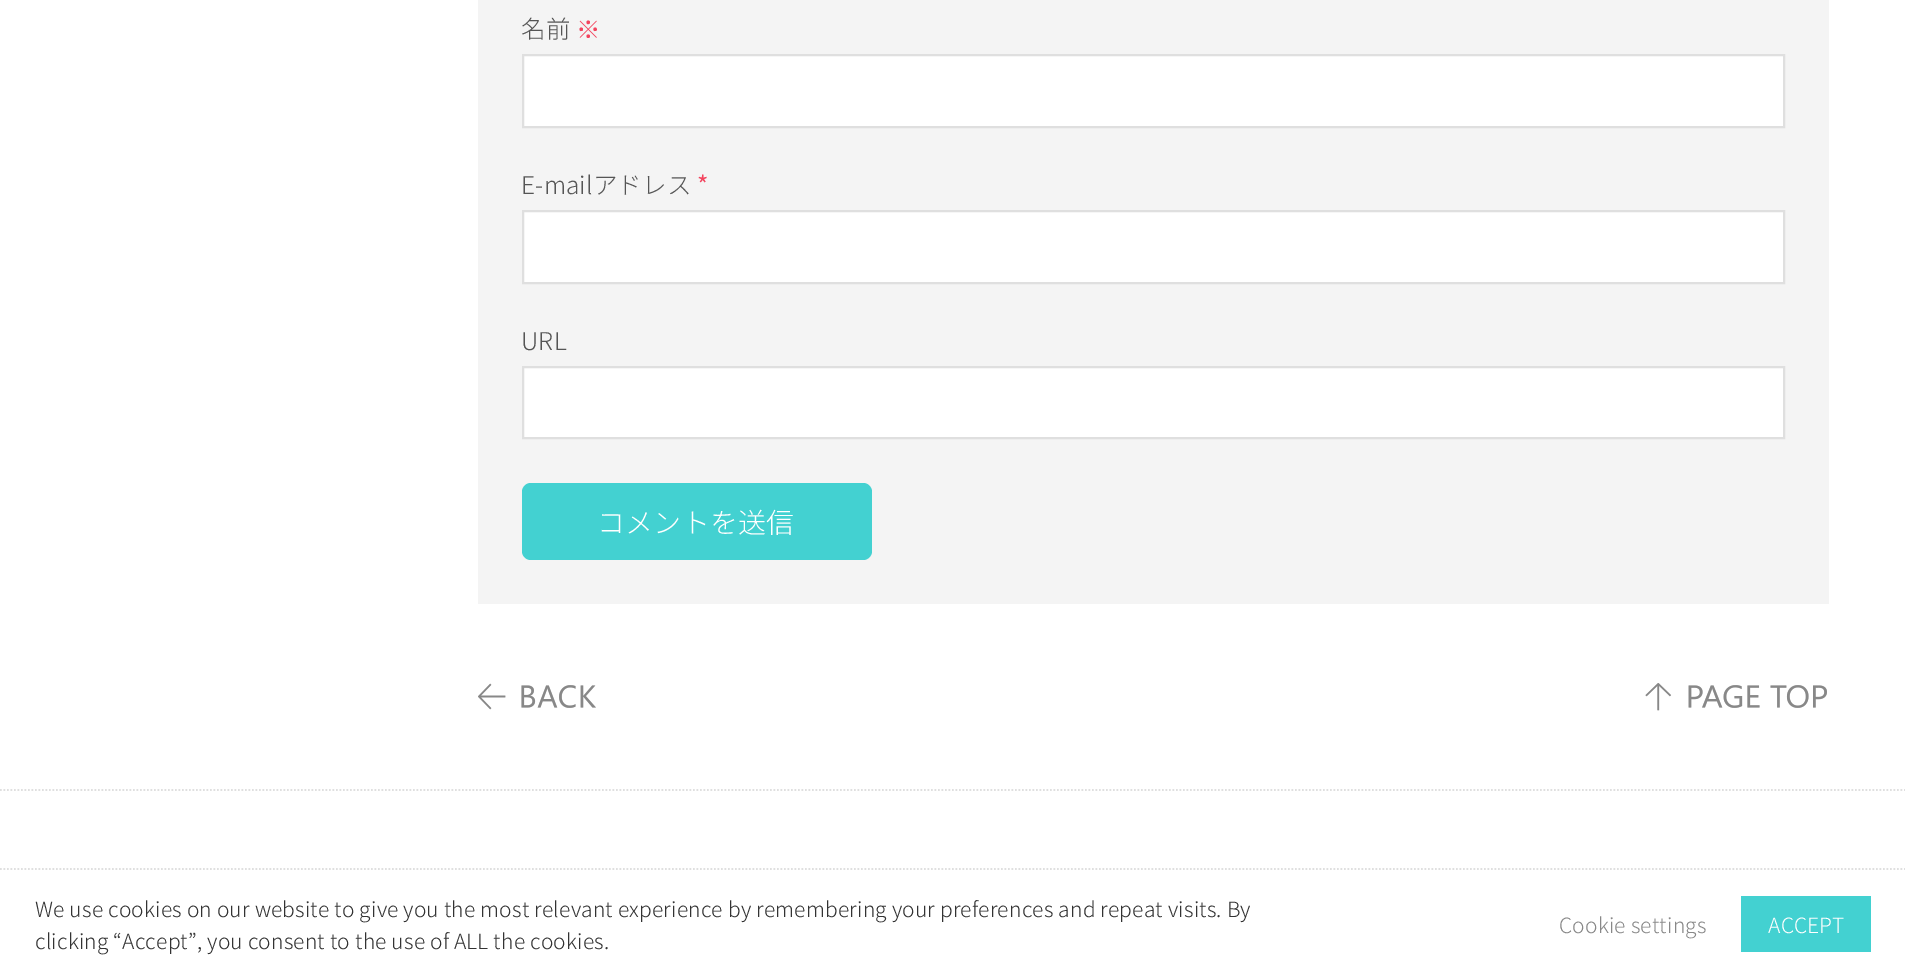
%!PS
<< /PageSize [1905 977] >> setpagedevice
/roundrect { 5 dict begin { /r /h /w /y /x } { exch def } forall
  x r add y moveto x w add y 2 copy h add r arct x w add y h add x 1 index r arct
  x y h add x y r arct x y 2 copy exch w add exch r arct closepath end } def
/picture { 5 dict begin { /h /w /y /x /name } { exch def } forall
  gsave x y translate w h scale
  w h 8 [w 0 0 h 0 0] name (r) file false 3 colorimage grestore end } def
0 977 translate 1 -1 scale
4 setmiterlimit
1 setgray
0 0 1905 977 rectfill
0.957 setgray
478 0 1351 604 rectfill
/NotoSansJP-Light [24.5 0 0 -24.5 0 0] selectfont
0.333 setgray
521 38 moveto 0.18 0 (名前) ashow
/WenQuanYiZenHei-Medium [24.5 0 0 -24.5 0 0] selectfont
0.953 0.267 0.369 setrgbcolor
576 38 moveto 0.18 0 (※) ashow
1 setgray
newpath 523 55 moveto 1784 55 lineto 1784 127 lineto 523 127 lineto closepath gsave fill grestore
0.875 setgray
2 setlinewidth
stroke
/NotoSansJP-Light [24.5 0 0 -24.5 0 0] selectfont
0.333 setgray
521 194 moveto 0.18 0 (E-mailアドレス) ashow
/NotoSansJP-Regular [24.5 0 0 -24.5 0 0] selectfont
0.953 0.267 0.369 setrgbcolor
697 194 moveto 0.18 0 (*) ashow
1 setgray
newpath 523 211 moveto 1784 211 lineto 1784 283 lineto 523 283 lineto closepath gsave fill grestore
0.875 setgray
stroke
/NotoSansJP-Light [24.5 0 0 -24.5 0 0] selectfont
0.333 setgray
521 350 moveto 0.18 0 (URL) ashow
1 setgray
newpath 523 367 moveto 1784 367 lineto 1784 438 lineto 523 438 lineto closepath gsave fill grestore
0.875 setgray
stroke
0.263 0.82 0.82 setrgbcolor
522 483 350 77 9 roundrect fill
/NotoSansJP-Light [28 0 0 -28 0 0] selectfont
1 setgray
597 533 moveto 0.18 0 (コメントを送信) ashow
(img1.rgb) 478 683 118 27 picture
(img2.rgb) 478 683 118 27 picture
(img3.rgb) 1645 683 182 28 picture
(img4.rgb) 1645 683 182 28 picture
0.875 setgray
1.8 setlinewidth
[1.75 1.75] 0 setdash
newpath 0 790 moveto 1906 790 lineto stroke
newpath 0 869 moveto 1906 869 lineto stroke
/NotoSansJP-Light [21 0 0 -21 0 0] selectfont
0.2 setgray
35 917 moveto 0.18 0 (We use cookies on our website to give you the most relevant experience by remembering your preferences and repeat visits. By) ashow
35 949 moveto 0.18 0 (clicking “Accept”, you consent to the use of ALL the cookies.) ashow
0.533 setgray
1559 933 moveto 0.18 0 (Cookie settings) ashow
0.263 0.82 0.82 setrgbcolor
1741 896 130 56 rectfill
1 setgray
1768 933 moveto 0.18 0 (ACCEPT) ashow
showpage
